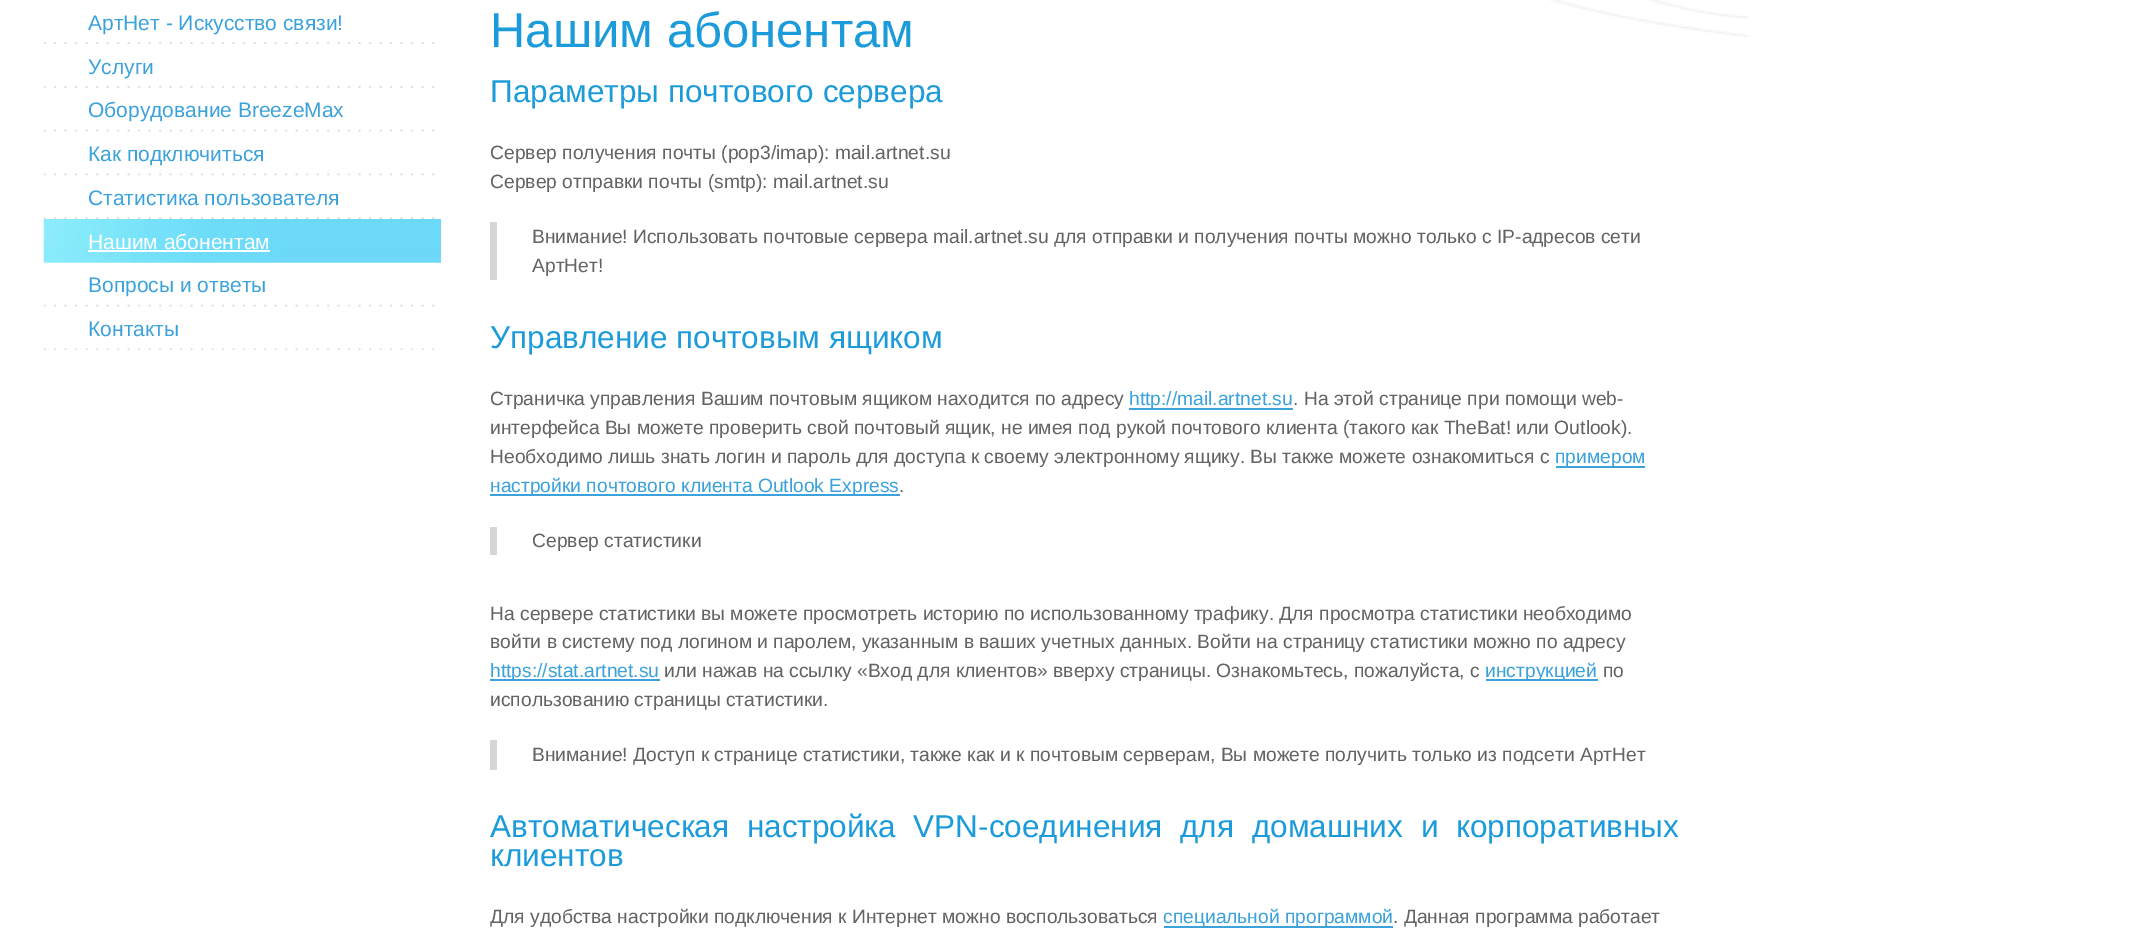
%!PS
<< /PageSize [2148 934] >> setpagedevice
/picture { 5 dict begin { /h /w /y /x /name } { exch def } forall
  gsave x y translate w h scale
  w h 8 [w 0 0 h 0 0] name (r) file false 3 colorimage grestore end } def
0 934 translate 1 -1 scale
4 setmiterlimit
1 setgray
0 0 2148 934 rectfill
(img1.rgb) 44 42 391 2 picture
/LiberationSans-Regular [21 0 0 -21 0 0] selectfont
0.235 0.635 0.863 setrgbcolor
88 30 moveto (АртНет - Искусство связи!) show
(img2.rgb) 44 86 391 2 picture
88 74 moveto (Услуги) show
(img3.rgb) 44 129 391 3 picture
88 117 moveto (Оборудование BreezeMax) show
(img4.rgb) 44 173 391 3 picture
88 161 moveto (Как подключиться) show
(img1.rgb) 44 217 391 2 picture
88 205 moveto (Статистика пользователя) show
(img5.rgb) 43 219 398 44 picture
1 setgray
88 249 moveto (Нашим абонентам) show
88 250 182 2 rectfill
(img3.rgb) 44 304 391 3 picture
0.235 0.635 0.863 setrgbcolor
88 292 moveto (Вопросы и ответы) show
(img6.rgb) 44 348 391 2 picture
88 336 moveto (Контакты) show
(img7.rgb) 1549 0 199 37 picture
/LiberationSans-Regular [49 0 0 -49 0 0] selectfont
0.11 0.608 0.859 setrgbcolor
490 47 moveto (Нашим абонентам) show
/LiberationSans-Regular [31.5 0 0 -31.5 0 0] selectfont
490 102 moveto (Параметры почтового сервера) show
/LiberationSans-Regular [19.25 0 0 -19.25 0 0] selectfont
0.388 setgray
490 159 moveto (Сервер получения почты \(pop3/imap\): mail.artnet.su) show
490 188 moveto (Сервер отправки почты \(smtp\): mail.artnet.su) show
0.839 setgray
490 222 7 58 rectfill
0.388 setgray
532 243 moveto (Внимание! Использовать почтовые сервера mail.artnet.su для отправки и получения почты можно только c IP-адресов сети) show
532 272 moveto (АртНет!) show
/LiberationSans-Regular [31.5 0 0 -31.5 0 0] selectfont
0.11 0.608 0.859 setrgbcolor
490 348 moveto (Управление почтовым ящиком) show
/LiberationSans-Regular [19.25 0 0 -19.25 0 0] selectfont
0.388 setgray
490 405 moveto (Страничка управления Вашим почтовым ящиком находится по адресу) show
0.235 0.635 0.863 setrgbcolor
1129 408 164 2 rectfill
1129 405 moveto (http://mail.artnet.su) show
0.388 setgray
1293 405 moveto (. На этой странице при помощи web-) show
490 434 moveto (интерфейса Вы можете проверить свой почтовый ящик, не имея под рукой почтового клиента \(такого как TheBat! или Outlook\).) show
490 463 moveto (Необходимо лишь знать логин и пароль для доступа к своему электронному ящику. Вы также можете ознакомиться с) show
0.235 0.635 0.863 setrgbcolor
1556 466 89 2 rectfill
1555 463 moveto (примером) show
490 494 410 2 rectfill
490 492 moveto (настройки почтового клиента Outlook Express) show
0.388 setgray
899 492 moveto (.) show
0.839 setgray
490 527 7 28 rectfill
0.388 setgray
532 547 moveto (Сервер статистики) show
490 620 moveto (На сервере статистики вы можете просмотреть историю по использованному трафику. Для просмотра статистики необходимо) show
490 648 moveto (войти в систему под логином и паролем, указанным в ваших учетных данных. Войти на страницу статистики можно по адресу) show
0.235 0.635 0.863 setrgbcolor
490 679 170 2 rectfill
490 677 moveto (https://stat.artnet.su) show
0.388 setgray
664 677 moveto (или нажав на ссылку «Вход для клиентов» вверху страницы. Ознакомьтесь, пожалуйста, с) show
0.235 0.635 0.863 setrgbcolor
1486 679 112 2 rectfill
1485 677 moveto (инструкцией) show
0.388 setgray
1603 677 moveto (по) show
490 706 moveto (использованию страницы статистики.) show
0.839 setgray
490 740 7 30 rectfill
0.388 setgray
532 761 moveto (Внимание! Доступ к странице статистики, также как и к почтовым серверам, Вы можете получить только из подсети АртНет) show
/LiberationSans-Regular [31.5 0 0 -31.5 0 0] selectfont
0.11 0.608 0.859 setrgbcolor
490 837 moveto 9 0 32 (Автоматическая настройка VPN-соединения для домашних и корпоративных) widthshow
490 866 moveto (клиентов) show
/LiberationSans-Regular [19.25 0 0 -19.25 0 0] selectfont
0.388 setgray
490 923 moveto (Для удобства настройки подключения к Интернет можно воспользоваться) show
0.235 0.635 0.863 setrgbcolor
1164 926 229 2 rectfill
1163 923 moveto (специальной программой) show
0.388 setgray
1393 923 moveto (. Данная программа работает) show
showpage
